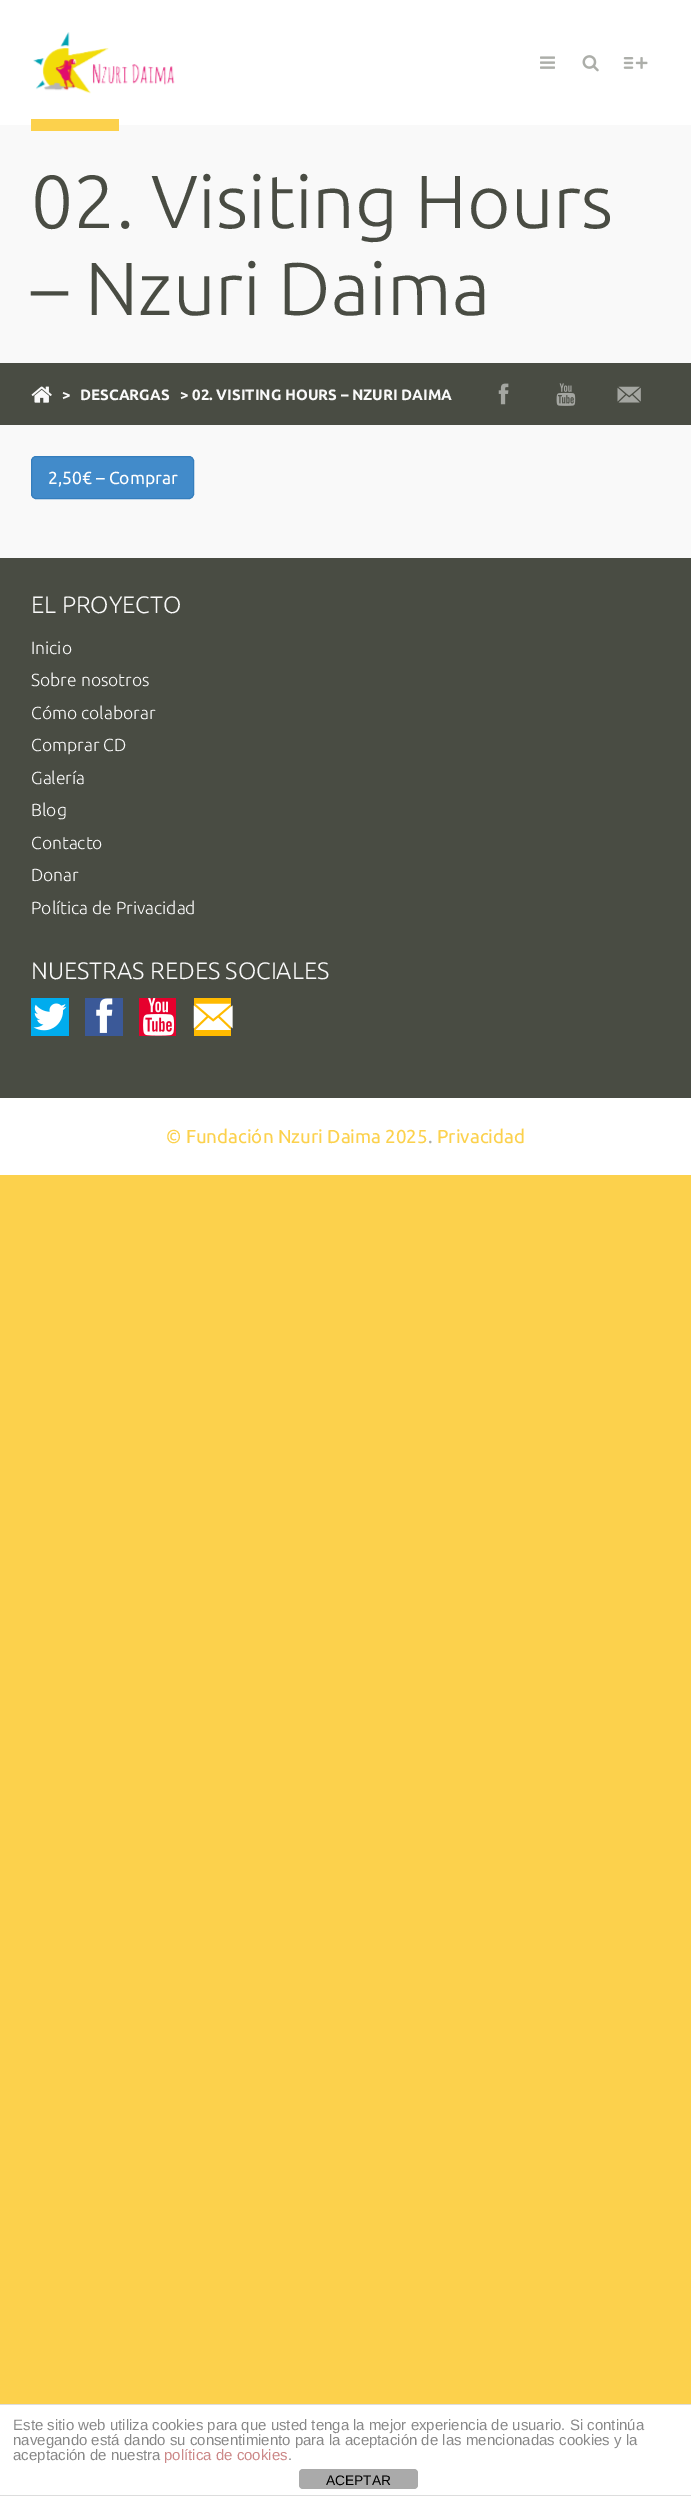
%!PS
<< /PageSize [691 2496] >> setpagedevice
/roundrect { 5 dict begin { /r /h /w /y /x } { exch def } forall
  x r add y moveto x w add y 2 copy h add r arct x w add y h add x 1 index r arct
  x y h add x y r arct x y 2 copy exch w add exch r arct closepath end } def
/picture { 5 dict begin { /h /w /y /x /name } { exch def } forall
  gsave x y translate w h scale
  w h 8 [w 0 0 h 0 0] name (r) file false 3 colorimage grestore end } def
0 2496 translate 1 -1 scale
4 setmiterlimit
0.988 0.82 0.298 setrgbcolor
0 0 691 2496 rectfill
1 setgray
0 0 691 125 rectfill
(img1.rgb) 33 32 142 62 picture
(img2.rgb) 540 56 15 13 picture
(img3.rgb) 582 55 17 17 picture
(img4.rgb) 623 57 25 12 picture
0.976 setgray
0 125 691 238 rectfill
0.988 0.82 0.298 setrgbcolor
31 119 88 12 rectfill
/Ubuntu-Light [75 0 0 -75 0 0] selectfont
0.286 0.298 0.263 setrgbcolor
31 228 moveto (02. Visiting Hours) show
31 315 moveto (– Nzuri Daima) show
0 363 691 62 rectfill
(img5.rgb) 31 386 21 17 picture
/Ubuntu-Bold [15 0 0 -15 0 0] selectfont
0.976 setgray
62 400 moveto (>) show
80 400 moveto (DESCARGAS) show
180 400 moveto (> 02. VISITING HOURS – NZURI DAIMA) show
(img6.rgb) 498 383 11 22 picture
(img7.rgb) 556 383 20 23 picture
(img8.rgb) 617 386 24 17 picture
0 425 691 133 rectfill
0.259 0.545 0.792 setrgbcolor
31.5 456.5 162 42 4.5 roundrect gsave fill grestore
0.208 0.494 0.741 setrgbcolor
stroke
/Ubuntu-Regular [17.5 0 0 -17.5 0 0] selectfont
1 setgray
48 484 moveto (2,50€ – Comprar) show
0.286 0.298 0.263 setrgbcolor
0 558 691 540 rectfill
/Ubuntu-Light [23.75 0 0 -23.75 0 0] selectfont
0.976 setgray
31 613 moveto (EL PROYECTO) show
/Ubuntu-Light [17.5 0 0 -17.5 0 0] selectfont
31 654 moveto (Inicio) show
31 686 moveto (Sobre nosotros) show
31 719 moveto (Cómo colaborar) show
31 751 moveto (Comprar CD) show
31 784 moveto (Galería) show
31 816 moveto (Blog) show
31 849 moveto (Contacto) show
31 881 moveto (Donar) show
31 914 moveto (Política de Privacidad) show
/Ubuntu-Light [23.75 0 0 -23.75 0 0] selectfont
31 979 moveto (NUESTRAS REDES SOCIALES) show
0 0.675 0.933 setrgbcolor
31 998 38 38 rectfill
(img9.rgb) 33 1003 34 28 picture
0.231 0.349 0.596 setrgbcolor
85 998 38 38 rectfill
(img10.rgb) 96 998 17 35 picture
0.902 0 0.176 setrgbcolor
139 998 37 38 rectfill
(img11.rgb) 143 998 32 38 picture
1 0.729 0 setrgbcolor
194 998 37 38 rectfill
(img12.rgb) 193 1003 40 27 picture
1 setgray
0 1098 691 77 rectfill
/Ubuntu-Regular [18.75 0 0 -18.75 0 0] selectfont
0.988 0.82 0.298 setrgbcolor
166 1143 moveto (© Fundación Nzuri Daima 2025) show
0.675 0.682 0.663 setrgbcolor
428 1143 moveto (.) show
0.988 0.82 0.298 setrgbcolor
437 1143 moveto (Privacidad) show
1 setgray
0 2405 691 90 rectfill
0.867 setgray
0 2404 691 1 rectfill
0 2495 691 1 rectfill
/LiberationSans-Regular [15 0 0 -15 0 0] selectfont
0.533 setgray
13 2430 moveto (Este sitio web utiliza cookies para que usted tenga la mejor experiencia de usuario. Si continúa) show
13 2445 moveto (navegando está dando su consentimiento para la aceptación de las mencionadas cookies y la) show
13 2460 moveto (aceptación de nuestra) show
0.8 0.533 0.533 setrgbcolor
164 2460 moveto (política de cookies) show
0.533 setgray
288 2460 moveto (.) show
0.667 setgray
299 2469 119 20 4 roundrect fill
/LiberationSans-Regular [13.75 0 0 -13.75 0 0] selectfont
0 setgray
326 2485 moveto (ACEPTAR) show
showpage
